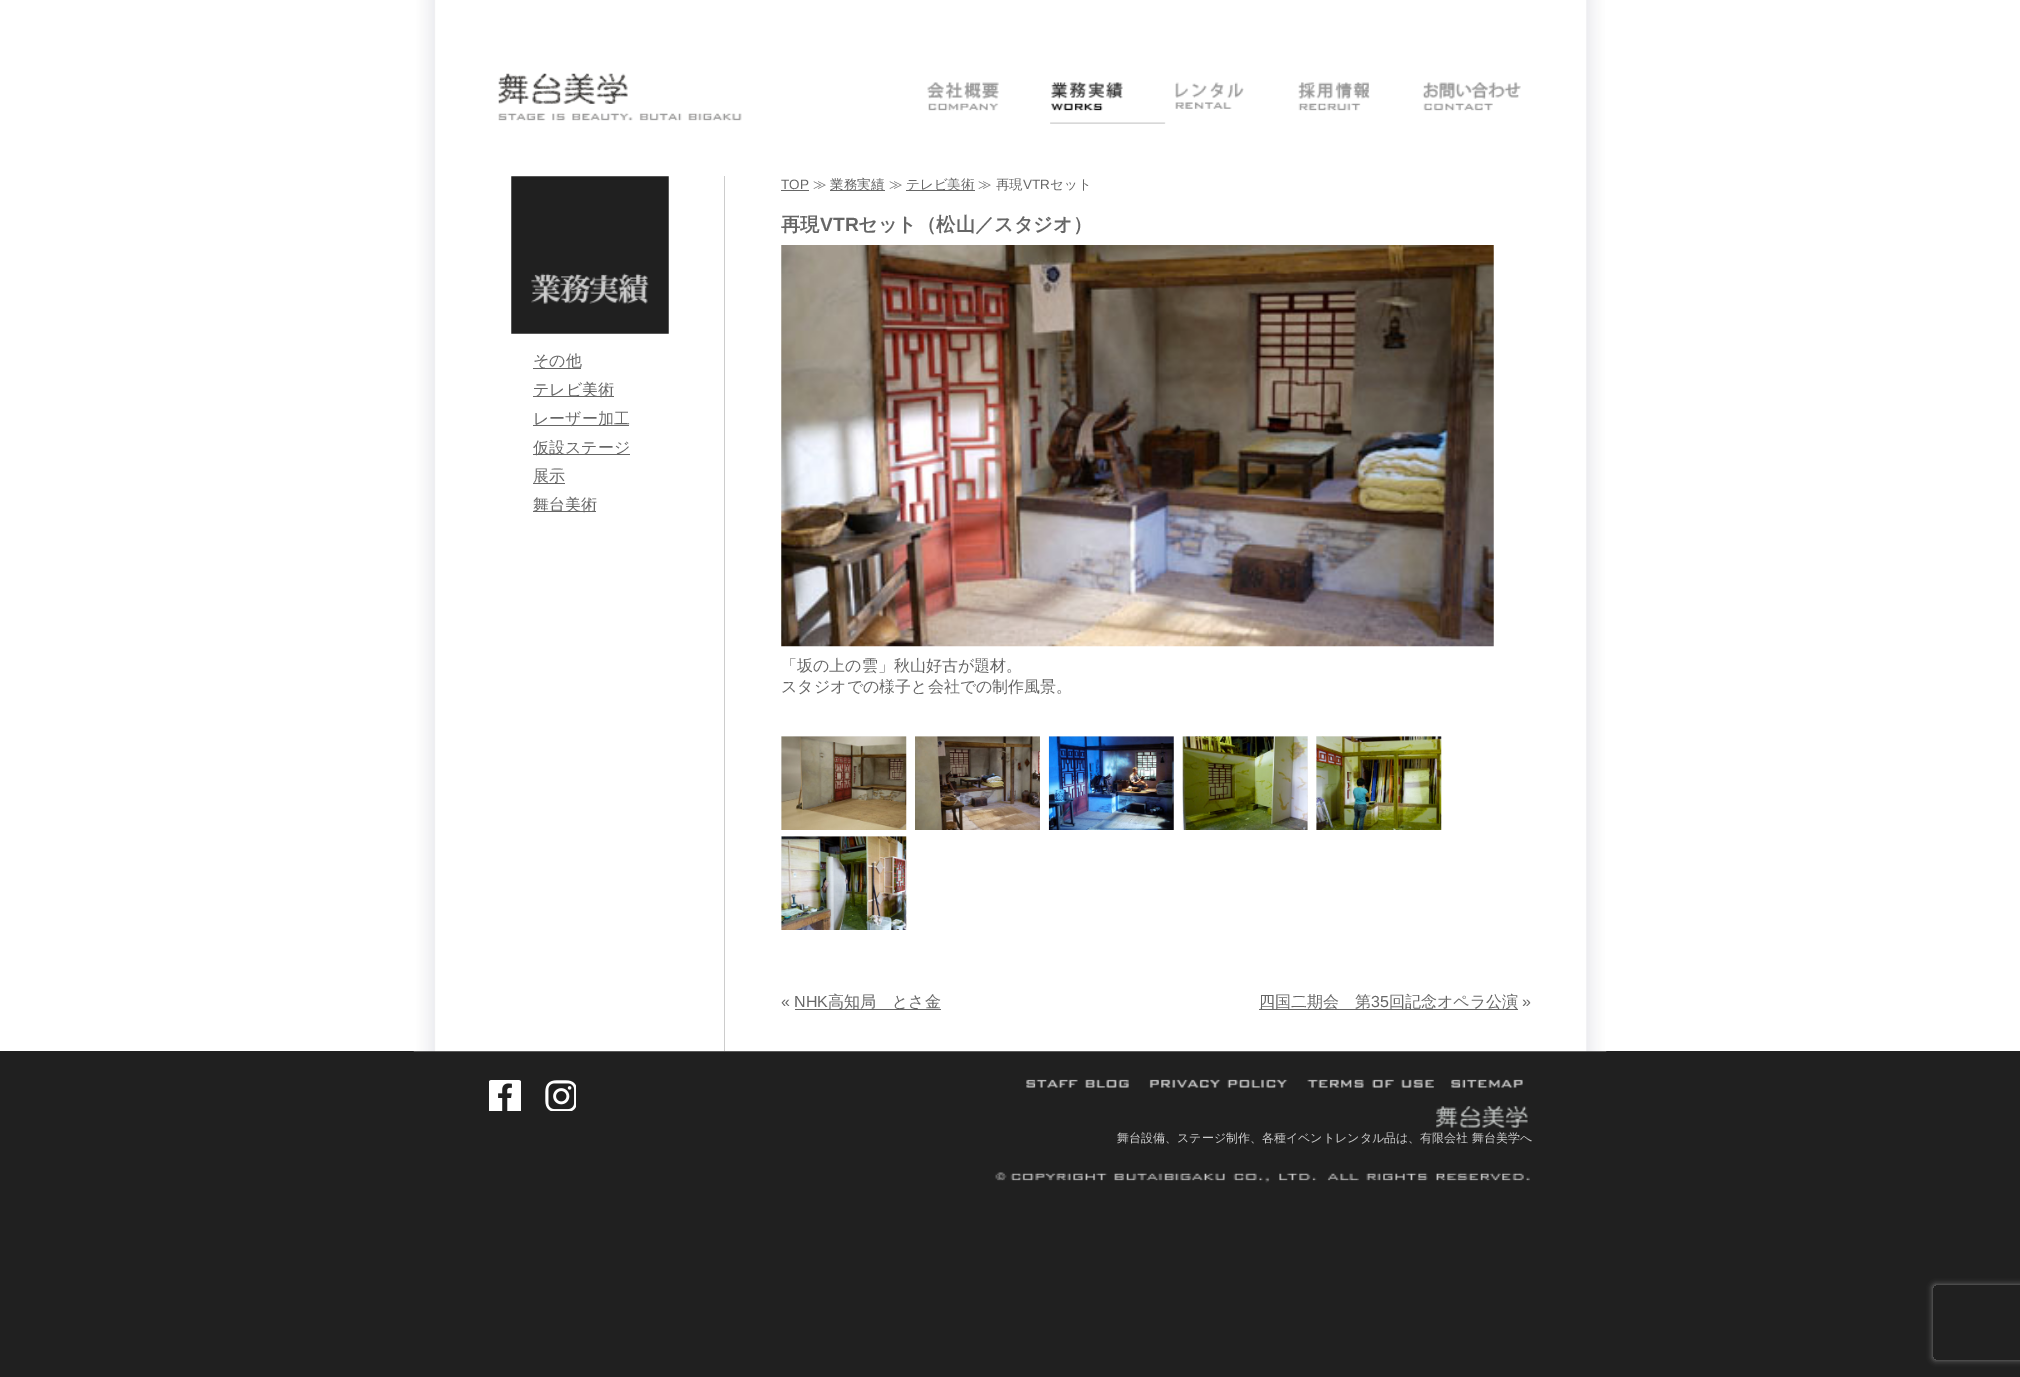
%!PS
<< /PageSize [2020 1377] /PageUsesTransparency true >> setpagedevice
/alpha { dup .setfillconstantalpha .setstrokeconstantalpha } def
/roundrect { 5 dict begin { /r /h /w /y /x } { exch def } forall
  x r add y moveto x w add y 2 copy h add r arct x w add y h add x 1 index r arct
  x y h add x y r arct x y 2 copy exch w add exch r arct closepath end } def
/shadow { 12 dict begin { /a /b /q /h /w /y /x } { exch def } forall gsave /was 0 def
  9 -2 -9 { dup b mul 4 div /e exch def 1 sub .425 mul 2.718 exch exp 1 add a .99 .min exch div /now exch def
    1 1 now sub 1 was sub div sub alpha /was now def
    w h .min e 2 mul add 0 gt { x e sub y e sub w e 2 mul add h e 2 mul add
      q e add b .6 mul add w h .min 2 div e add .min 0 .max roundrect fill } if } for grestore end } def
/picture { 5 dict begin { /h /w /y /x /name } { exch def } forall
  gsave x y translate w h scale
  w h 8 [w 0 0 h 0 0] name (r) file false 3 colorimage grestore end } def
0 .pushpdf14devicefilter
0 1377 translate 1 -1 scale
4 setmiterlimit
0.125 setgray
0 0 2020 1377 rectfill
1 setgray
0 0 2020 1051 rectfill
(img1.rgb) 413 0 1194 1052 picture
(img2.rgb) 498 73 244 48 picture
(img3.rgb) 927 82 72 29 picture
(img4.rgb) 1050 81 116 43 picture
(img5.rgb) 1175 82 69 27 picture
(img6.rgb) 1298 82 72 29 picture
(img7.rgb) 1422 82 99 29 picture
(img8.rgb) 511 176 158 158 picture
0.4 setgray
533 368 48 1 rectfill
/WenQuanYiZenHei-Medium [16 0 0 -16 0 0] selectfont
533 366 moveto (その他) show
533 396 81 1 rectfill
533 395 moveto (テレビ美術) show
533 425 96 1 rectfill
533 424 moveto (レーザー加工) show
533 454 97 1 rectfill
533 453 moveto (仮設ステージ) show
533 483 32 1 rectfill
533 481 moveto (展示) show
533 511 63 1 rectfill
533 510 moveto (舞台美術) show
0.8 setgray
724 176 1 875 rectfill
/LiberationSans-Regular [13.5 0 0 -13.5 0 0] selectfont
0.4 setgray
781 189 moveto (TOP) show
781 190 28 1 rectfill
/WenQuanYiZenHei-Medium [13.5 0 0 -13.5 0 0] selectfont
813 189 moveto (≫) show
830 190 55 1 rectfill
830 189 moveto (業務実績) show
889 189 moveto (≫) show
906 190 69 1 rectfill
906 189 moveto (テレビ美術) show
978 189 moveto (≫ 再現) show
/LiberationSans-Regular [13.5 0 0 -13.5 0 0] selectfont
1023 189 moveto (VTR) show
/WenQuanYiZenHei-Medium [13.5 0 0 -13.5 0 0] selectfont
1050 189 moveto (セット) show
/WenQuanYiZenHei-Bold [19.25 0 0 -19.25 0 0] selectfont
781 231 moveto (再現) show
/LiberationSans-Bold [19.25 0 0 -19.25 0 0] selectfont
820 231 moveto (VTR) show
/WenQuanYiZenHei-Bold [19.25 0 0 -19.25 0 0] selectfont
858 231 moveto (セット（松山／スタジオ）) show
(img9.rgb) 781 245 713 402 picture
/WenQuanYiZenHei-Medium [16 0 0 -16 0 0] selectfont
781 671 moveto (「坂の上の雲」秋山好古が題材。) show
781 692 moveto (スタジオでの様子と会社での制作風景。) show
0.933 setgray
781 736 125 94 rectfill
(img10.rgb) 781 736 126 94 picture
915 736 125 1 rectfill
(img11.rgb) 915 736 125 94 picture
1049 736 125 94 rectfill
(img12.rgb) 1048 736 126 94 picture
1183 736 125 94 rectfill
(img13.rgb) 1182 736 126 94 picture
1316 736 125 94 rectfill
(img14.rgb) 1316 736 126 94 picture
781 836 125 94 rectfill
(img15.rgb) 781 836 126 94 picture
/LiberationSans-Regular [16 0 0 -16 0 0] selectfont
0.4 setgray
781 1007 moveto (« NHK) show
795 1009 146 1 rectfill
/WenQuanYiZenHei-Medium [16 0 0 -16 0 0] selectfont
828 1007 moveto (高知局　とさ金) show
1259 1009 259 1 rectfill
1259 1007 moveto (四国二期会　第) show
/LiberationSans-Regular [16 0 0 -16 0 0] selectfont
1371 1007 moveto (35) show
/WenQuanYiZenHei-Medium [16 0 0 -16 0 0] selectfont
1389 1007 moveto (回記念オペラ公演) show
/LiberationSans-Regular [16 0 0 -16 0 0] selectfont
1522 1007 moveto (») show
(img16.rgb) 489 1080 32 31 picture
(img17.rgb) 545 1080 31 31 picture
(img18.rgb) 1026 1079 103 9 picture
(img19.rgb) 1149 1079 139 9 picture
(img20.rgb) 1307 1079 127 9 picture
(img21.rgb) 1451 1079 72 9 picture
(img22.rgb) 1436 1106 92 22 picture
/WenQuanYiZenHei-Medium [12 0 0 -12 0 0] selectfont
0.8 setgray
1117 1142 moveto (舞台設備、ステージ制作、各種イベントレンタル品は、有限会社 舞台美学へ) show
(img23.rgb) 995 1172 535 11 picture
gsave
newpath 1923 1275 moveto 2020 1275 lineto 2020 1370 lineto 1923 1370 lineto closepath 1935.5 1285 moveto 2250.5 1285 lineto 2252 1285 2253 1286 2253 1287.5 curveto 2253 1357.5 lineto 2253 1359 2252 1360 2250.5 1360 curveto 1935.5 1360 lineto 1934 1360 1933 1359 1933 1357.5 curveto 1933 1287.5 lineto 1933 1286 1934 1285 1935.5 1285 curveto closepath eoclip newpath
0.502 setgray
1933 1285 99 75 2.5 3 1 shadow
grestore
.poppdf14devicefilter showpage
